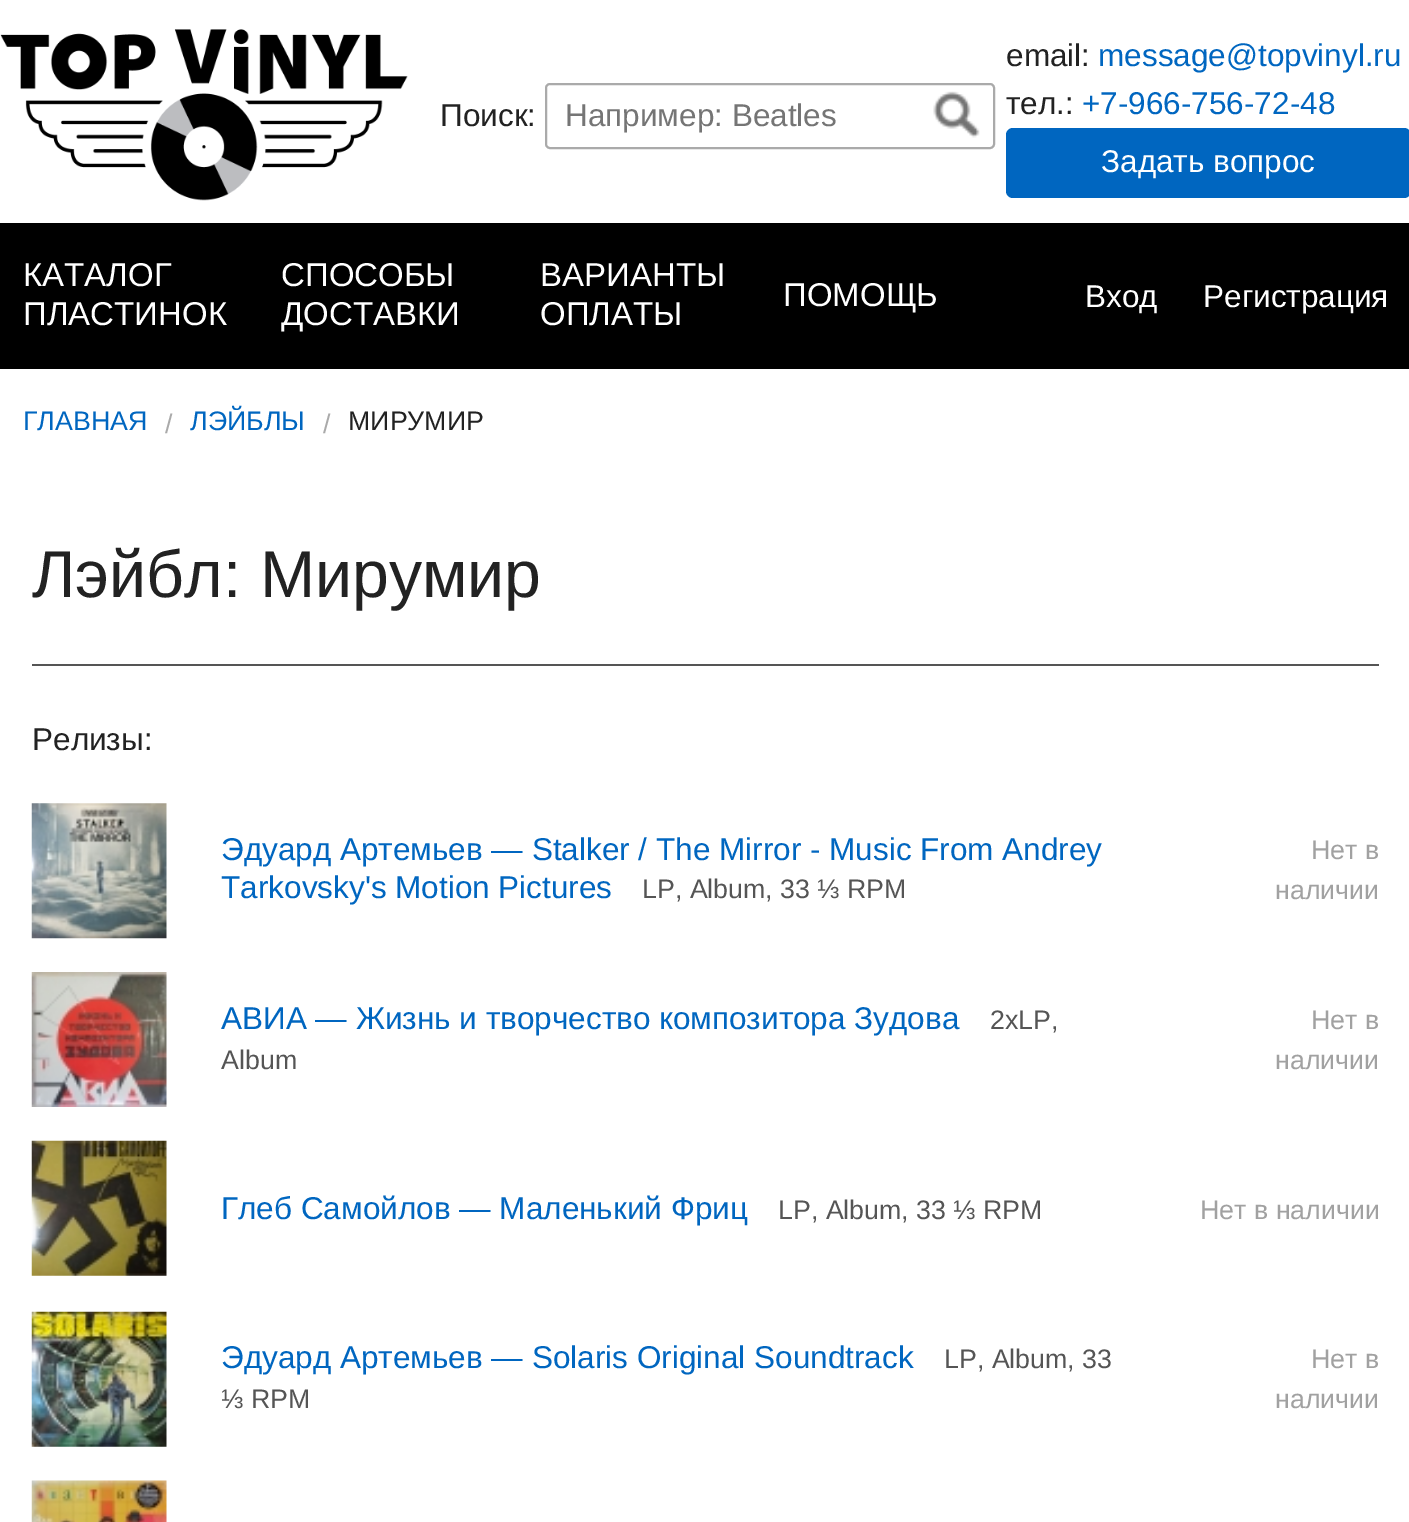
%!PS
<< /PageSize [1409 1522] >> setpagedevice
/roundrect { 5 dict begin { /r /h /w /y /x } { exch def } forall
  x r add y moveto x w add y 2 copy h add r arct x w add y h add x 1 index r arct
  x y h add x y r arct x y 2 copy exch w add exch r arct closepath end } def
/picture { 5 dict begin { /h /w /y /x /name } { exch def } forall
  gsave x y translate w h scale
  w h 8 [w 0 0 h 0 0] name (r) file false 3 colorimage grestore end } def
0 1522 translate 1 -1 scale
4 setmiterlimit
1 setgray
0 0 1409 1522 rectfill
(img1.rgb) 0 29 408 172 picture
/LiberationSans-Regular [31.5 0 0 -31.5 0 0] selectfont
0.133 setgray
440 126 moveto (Поиск:) show
0.667 setgray
2 setlinewidth
546 84 448 64 4 roundrect stroke
0.459 setgray
565 126 moveto (Например: Beatles) show
(img2.rgb) 933 91 47 47 picture
0.133 setgray
1006 66 moveto (email:) show
0 0.4 0.753 setrgbcolor
1098 66 moveto (message@topvinyl.ru) show
0.133 setgray
1006 114 moveto (тел.:) show
0 0.4 0.753 setrgbcolor
1082 114 moveto (+7-966-756-72-48) show
1006 128 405 70 7 roundrect fill
1 setgray
1101 172 moveto (Задать вопрос) show
0 setgray
0 223 1409 146 rectfill
/LiberationSans-Regular [33 0 0 -33 0 0] selectfont
1 setgray
23 286 moveto (КАТАЛОГ) show
23 325 moveto (ПЛАСТИНОК) show
281 286 moveto (СПОСОБЫ) show
281 325 moveto (ДОСТАВКИ) show
540 286 moveto (ВАРИАНТЫ) show
540 325 moveto (ОПЛАТЫ) show
783 306 moveto (ПОМОЩЬ) show
/LiberationSans-Regular [31.5 0 0 -31.5 0 0] selectfont
1085 307 moveto (Вход) show
1203 307 moveto (Регистрация) show
/LiberationSans-Regular [26.75 0 0 -26.75 0 0] selectfont
0 0.4 0.753 setrgbcolor
23 430 moveto (ГЛАВНАЯ) show
0.667 setgray
165 433 moveto (/) show
0 0.4 0.753 setrgbcolor
190 430 moveto (ЛЭЙБЛЫ) show
0.667 setgray
323 433 moveto (/) show
0.133 setgray
348 430 moveto (МИРУМИР) show
/LiberationSans-Regular [66.25 0 0 -66.25 0 0] selectfont
32 597 moveto (Лэйбл: Мирумир) show
0.333 setgray
32 664 1347 2 rectfill
/LiberationSans-Regular [31.5 0 0 -31.5 0 0] selectfont
0.133 setgray
32 750 moveto (Релизы:) show
(img3.rgb) 31 803 136 136 picture
0 0.4 0.753 setrgbcolor
221 860 moveto (Эдуард Артемьев — Stalker / The Mirror - Music From Andrey) show
221 898 moveto (Tarkovsky's Motion Pictures) show
/LiberationSans-Regular [26.75 0 0 -26.75 0 0] selectfont
0.333 setgray
642 898 moveto (LP, Album, 33 ⅓ RPM) show
0.631 setgray
1311 859 moveto (Нет в) show
1275 899 moveto (наличии) show
(img4.rgb) 31 972 136 135 picture
/LiberationSans-Regular [31.5 0 0 -31.5 0 0] selectfont
0 0.4 0.753 setrgbcolor
221 1029 moveto (АВИА — Жизнь и творчество композитора Зудова) show
/LiberationSans-Regular [26.75 0 0 -26.75 0 0] selectfont
0.333 setgray
990 1029 moveto (2xLP,) show
221 1069 moveto (Album) show
0.631 setgray
1311 1029 moveto (Нет в) show
1275 1069 moveto (наличии) show
(img5.rgb) 31 1140 136 136 picture
/LiberationSans-Regular [31.5 0 0 -31.5 0 0] selectfont
0 0.4 0.753 setrgbcolor
221 1219 moveto (Глеб Самойлов — Маленький Фриц) show
/LiberationSans-Regular [26.75 0 0 -26.75 0 0] selectfont
0.333 setgray
778 1219 moveto (LP, Album, 33 ⅓ RPM) show
0.631 setgray
1200 1219 moveto (Нет в наличии) show
(img6.rgb) 31 1311 136 136 picture
/LiberationSans-Regular [31.5 0 0 -31.5 0 0] selectfont
0 0.4 0.753 setrgbcolor
221 1368 moveto (Эдуард Артемьев — Solaris Original Soundtrack) show
/LiberationSans-Regular [26.75 0 0 -26.75 0 0] selectfont
0.333 setgray
944 1368 moveto (LP, Album, 33) show
221 1408 moveto (⅓ RPM) show
0.631 setgray
1311 1368 moveto (Нет в) show
1275 1408 moveto (наличии) show
(img7.rgb) 31 1480 136 42 picture
showpage
